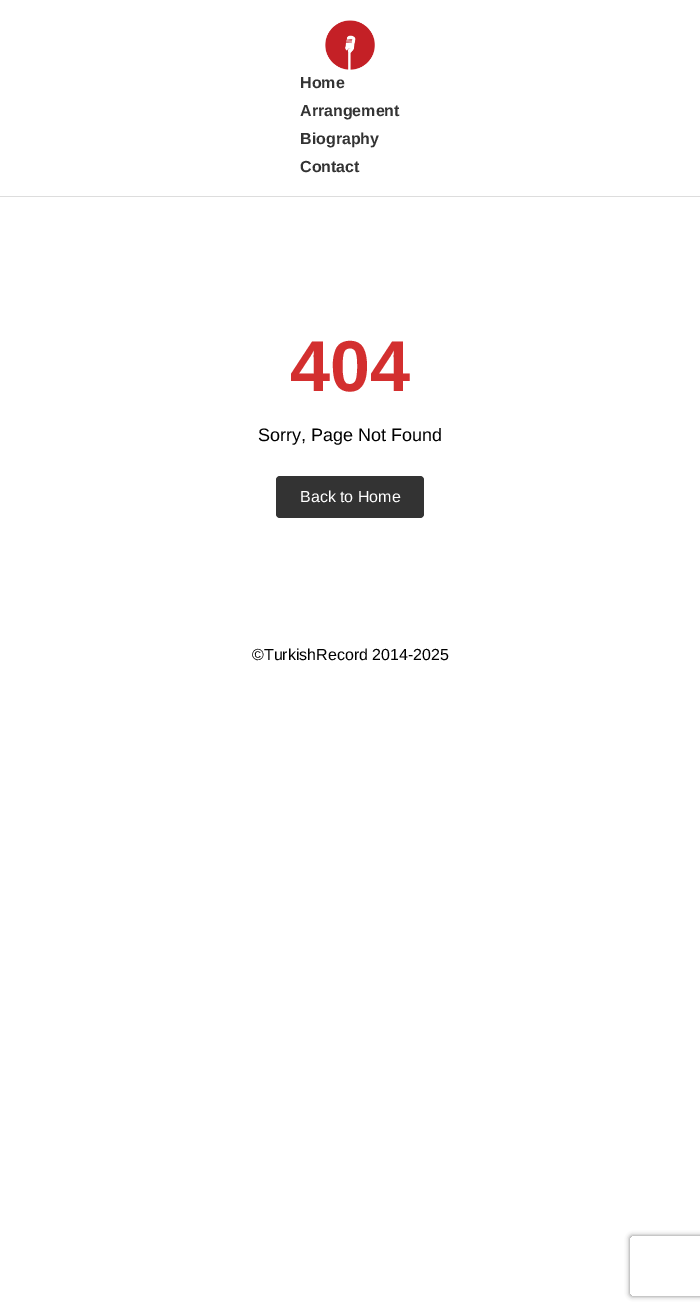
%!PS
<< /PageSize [700 1310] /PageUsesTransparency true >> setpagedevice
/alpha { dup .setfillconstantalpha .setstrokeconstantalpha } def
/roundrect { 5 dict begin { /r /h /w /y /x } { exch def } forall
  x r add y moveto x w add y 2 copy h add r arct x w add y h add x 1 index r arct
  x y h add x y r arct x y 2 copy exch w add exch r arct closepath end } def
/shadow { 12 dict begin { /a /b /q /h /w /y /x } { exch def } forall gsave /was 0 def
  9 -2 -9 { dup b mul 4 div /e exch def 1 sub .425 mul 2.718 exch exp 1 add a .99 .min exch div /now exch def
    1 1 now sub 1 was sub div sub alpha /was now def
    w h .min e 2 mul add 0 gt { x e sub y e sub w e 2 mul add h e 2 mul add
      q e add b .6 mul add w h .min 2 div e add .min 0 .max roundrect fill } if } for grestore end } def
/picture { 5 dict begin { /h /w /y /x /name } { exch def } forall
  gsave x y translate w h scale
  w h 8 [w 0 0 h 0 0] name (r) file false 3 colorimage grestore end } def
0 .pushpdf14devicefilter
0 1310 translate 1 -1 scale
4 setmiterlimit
1 setgray
0 0 700 1310 rectfill
0.867 setgray
0 196 700 1 rectfill
(img1.rgb) 325 20 50 50 picture
/LiberationSans-Bold [16 0 0 -16 0 0] selectfont
0.2 setgray
300 88 moveto (Home) show
300 116 moveto (Arrangement) show
300 144 moveto (Biography) show
300 172 moveto (Contact) show
/LiberationSans-Bold [72 0 0 -72 0 0] selectfont
0.827 0.184 0.184 setrgbcolor
290 391 moveto (404) show
/LiberationSans-Regular [18 0 0 -18 0 0] selectfont
0 setgray
258 441 moveto (Sorry, Page Not Found) show
0.2 setgray
276 476 148 42 4 roundrect fill
/LiberationSans-Regular [16 0 0 -16 0 0] selectfont
1 setgray
300 502 moveto (Back to Home) show
0 setgray
252 660 moveto (©TurkishRecord 2014-2025) show
gsave
newpath 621 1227 moveto 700 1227 lineto 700 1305 lineto 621 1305 lineto closepath 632 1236 moveto 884 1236 lineto 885 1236 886 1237 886 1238 curveto 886 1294 lineto 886 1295 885 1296 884 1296 curveto 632 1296 lineto 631 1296 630 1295 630 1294 curveto 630 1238 lineto 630 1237 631 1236 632 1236 curveto closepath eoclip newpath
0.502 setgray
630 1236 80 60 2 2.5 1 shadow
grestore
.poppdf14devicefilter showpage
